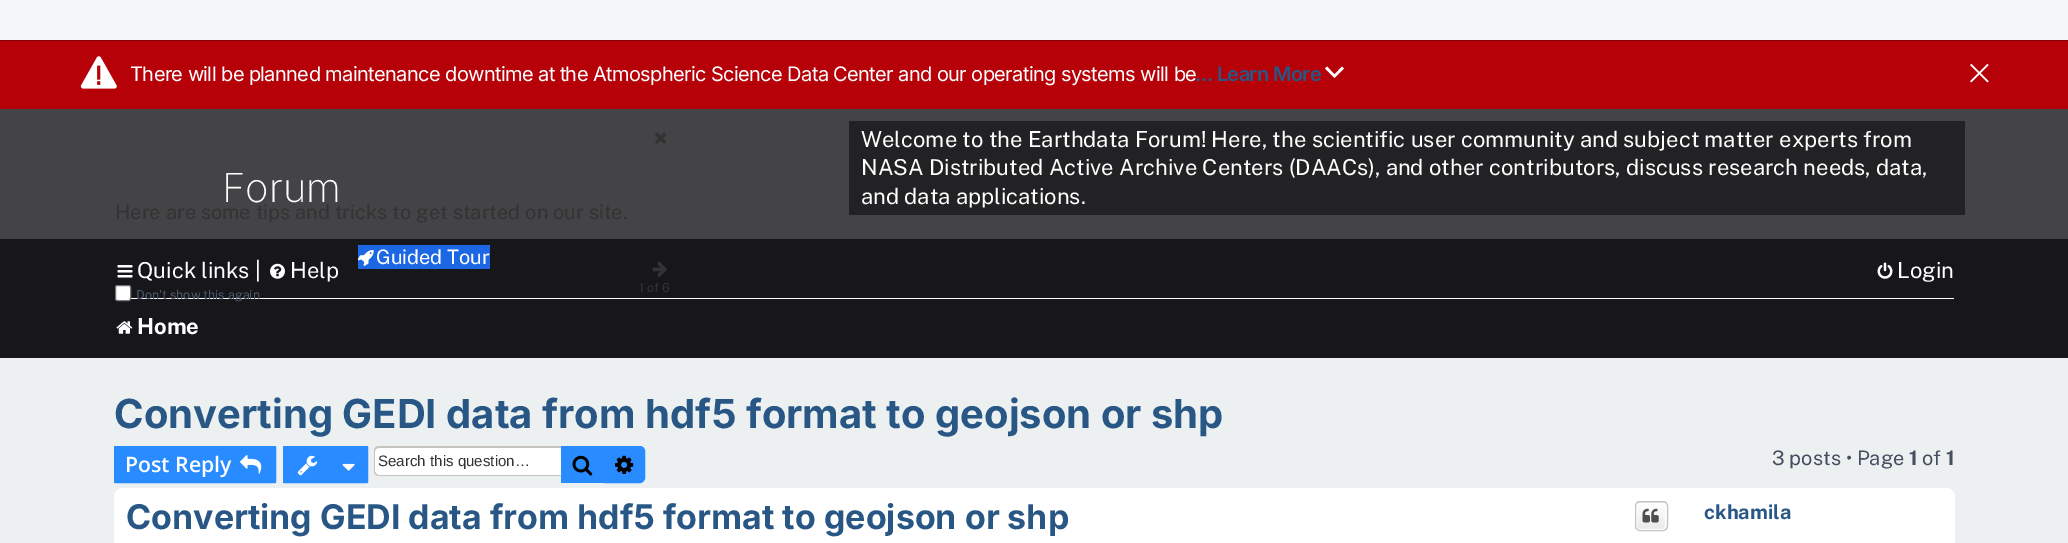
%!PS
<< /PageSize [2068 543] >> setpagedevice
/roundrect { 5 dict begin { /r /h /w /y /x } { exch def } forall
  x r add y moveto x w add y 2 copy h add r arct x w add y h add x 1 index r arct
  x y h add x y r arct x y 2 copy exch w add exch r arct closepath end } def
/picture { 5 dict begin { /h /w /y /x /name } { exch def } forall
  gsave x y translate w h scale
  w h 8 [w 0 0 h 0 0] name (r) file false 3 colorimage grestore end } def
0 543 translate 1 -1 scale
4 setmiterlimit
0.965 0.969 0.98 setrgbcolor
0 0 2068 543 rectfill
0.714 0.004 0.035 setrgbcolor
0 41 2068 68 rectfill
0.498 0 0.024 setrgbcolor
0 40 2068 1 rectfill
(img1.rgb) 80 56 37 33 picture
/Inter-Regular [20 0 0 -20 0 0] selectfont
1 setgray
130 81 moveto -0.62 0 (There will be planned maintenance downtime at the Atmospheric Science Data Center and our operating systems will be) ashow
/Inter-SemiBold [20 0 0 -20 0 0] selectfont
0.157 0.341 0.525 setrgbcolor
1195 81 moveto -0.62 0 (... Learn More) ashow
1 setgray
newpath 1334.5 74.5 moveto 1342 66.5 lineto 1344 68.5 lineto 1334.5 78 lineto 1325 68.5 lineto 1327 66.5 lineto closepath eofill
(img2.rgb) 1970 64 19 19 picture
0.925 0.941 0.945 setrgbcolor
0 358 2068 185 rectfill
0.267 0.267 0.278 setrgbcolor
0 109 2068 130 rectfill
/Inter-ExtraLight [40 0 0 -40 0 0] selectfont
1 setgray
222 202 moveto (Forum) show
0.133 0.133 0.141 setrgbcolor
849 121 1116 94 rectfill
/PublicSans-Regular [22 0 0 -22 0 0] selectfont
1 setgray
861 147 moveto (Welcome to the Earthdata Forum! Here, the scientific user community and subject matter experts from) show
861 175 moveto (NASA Distributed Active Archive Centers \(DAACs\), and other contributors, discuss research needs, data,) show
861 204 moveto (and data applications.) show
0.09 0.09 0.106 setrgbcolor
0 239 2068 119 rectfill
(img3.rgb) 655 132 12 12 picture
/PublicSans-Regular [20 0 0 -20 0 0] selectfont
0.2 setgray
115 219 moveto (Here are some tips and tricks to get started on our site.) show
(img4.rgb) 652 261 15 16 picture
/PublicSans-Regular [12.5 0 0 -12.5 0 0] selectfont
639 292 moveto (1 of 6) show
1 setgray
115 298 1839 1 rectfill
115.5 285.5 15 15 2 roundrect gsave fill grestore
0.463 setgray
stroke
0.314 0.349 0.424 setrgbcolor
136 299 moveto (Don't show this again) show
0.11 0.404 0.89 setrgbcolor
358 245 132 24 rectfill
(img5.rgb) 357 250 17 16 picture
/PublicSans-Regular [20 0 0 -20 0 0] selectfont
1 setgray
376 264 moveto (Guided Tour) show
(img6.rgb) 117 265 16 13 picture
/PublicSans-Regular [22 0 0 -22 0 0] selectfont
137 278 moveto (Quick links |) show
(img7.rgb) 270 263 15 16 picture
290 278 moveto (Help) show
(img8.rgb) 1877 262 16 17 picture
1897 278 moveto (Login) show
(img9.rgb) 116 321 17 13 picture
/PublicSans-Bold [22 0 0 -22 0 0] selectfont
137 334 moveto (Home) show
/Inter-Bold [40 0 0 -40 0 0] selectfont
0.157 0.341 0.525 setrgbcolor
114 428 moveto (Converting GEDI data from hdf5 format to geojson or shp) show
0.157 0.545 1 setrgbcolor
114.5 446.5 161 36 0.5 roundrect gsave fill grestore
stroke
/OpenSans-SemiBold [21.25 0 0 -21.25 0 0] selectfont
1 setgray
125 472 moveto (Post Reply) show
(img10.rgb) 240 455 22 19 picture
0.157 0.545 1 setrgbcolor
283.5 446.5 84 36 0.5 roundrect gsave fill grestore
stroke
(img11.rgb) 297 455 21 21 picture
(img12.rgb) 342 463 13 8 picture
1 setgray
newpath 379 448 moveto 561 448 lineto 561 475 lineto 379 475 lineto 377 475 375 473 375 471 curveto 375 452 lineto 375 450 377 448 379 448 curveto closepath fill
0.78 0.765 0.749 setrgbcolor
newpath 379 446 moveto 561 446 lineto 561 476 lineto 379 476 lineto 376 476 374 474 374 471 curveto 374 451 lineto 374 448 376 446 379 446 curveto closepath 379 448 moveto 561 448 lineto 561 475 lineto 379 475 lineto 377 475 375 473 375 471 curveto 375 451 lineto 375 449 377 448 379 448 curveto closepath eofill
/LiberationSans-Regular [15.1 0 0 -15.1 0 0] selectfont
0.2 setgray
378 466 moveto (Search this question…) show
0.157 0.545 1 setrgbcolor
561 446 43 37 rectfill
(img13.rgb) 572 455 21 21 picture
newpath 604.5 446.5 moveto 640 446.5 lineto 642.5 446.5 644.5 448.5 644.5 451 curveto 644.5 478 lineto 644.5 480.5 642.5 482.5 640 482.5 curveto 604.5 482.5 lineto closepath gsave fill grestore
stroke
(img14.rgb) 615 455 19 19 picture
/PublicSans-Regular [20 0 0 -20 0 0] selectfont
0.271 0.306 0.373 setrgbcolor
1772 465 moveto (3 posts • Page) show
/PublicSans-Bold [20 0 0 -20 0 0] selectfont
1909 465 moveto (1) show
/PublicSans-Regular [20 0 0 -20 0 0] selectfont
1922 465 moveto (of) show
/PublicSans-Bold [20 0 0 -20 0 0] selectfont
1946 465 moveto (1) show
1 setgray
114 488 1841 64 9 roundrect fill
/Inter-Bold [34 0 0 -34 0 0] selectfont
0.157 0.341 0.525 setrgbcolor
126 529 moveto (Converting GEDI data from hdf5 format to geojson or shp) show
gsave
1635 501 33 30 5 roundrect clip newpath
gsave newpath 1635 501 moveto 1668 501 lineto 1668 503 lineto 1635 503 lineto closepath clip newpath
<< /ShadingType 2 /ColorSpace /DeviceRGB /Coords [1651 475 1651 503] /Extend [true true] /Function << /FunctionType 2 /Domain [0 1] /C0 [1 1 1] /C1 [0.914 0.914 0.914] /N 1 >> >> shfill grestore
gsave newpath 1635 503 moveto 1668 503 lineto 1668 530 lineto 1635 530 lineto closepath clip newpath
<< /ShadingType 2 /ColorSpace /DeviceRGB /Coords [1651 503 1651 530] /Extend [true true] /Function << /FunctionType 2 /Domain [0 1] /C0 [1 1 1] /C1 [0.914 0.914 0.914] /N 1 >> >> shfill grestore
grestore
1 setgray
1636.5 503.5 29 26 3.5 roundrect stroke
0.78 0.765 0.749 setrgbcolor
1635.5 501.5 32 29 4.5 roundrect stroke
(img15.rgb) 1642 508 17 15 picture
/PublicSans-Bold [20 0 0 -20 0 0] selectfont
0.157 0.341 0.525 setrgbcolor
1704 519 moveto (ckhamila) show
showpage
